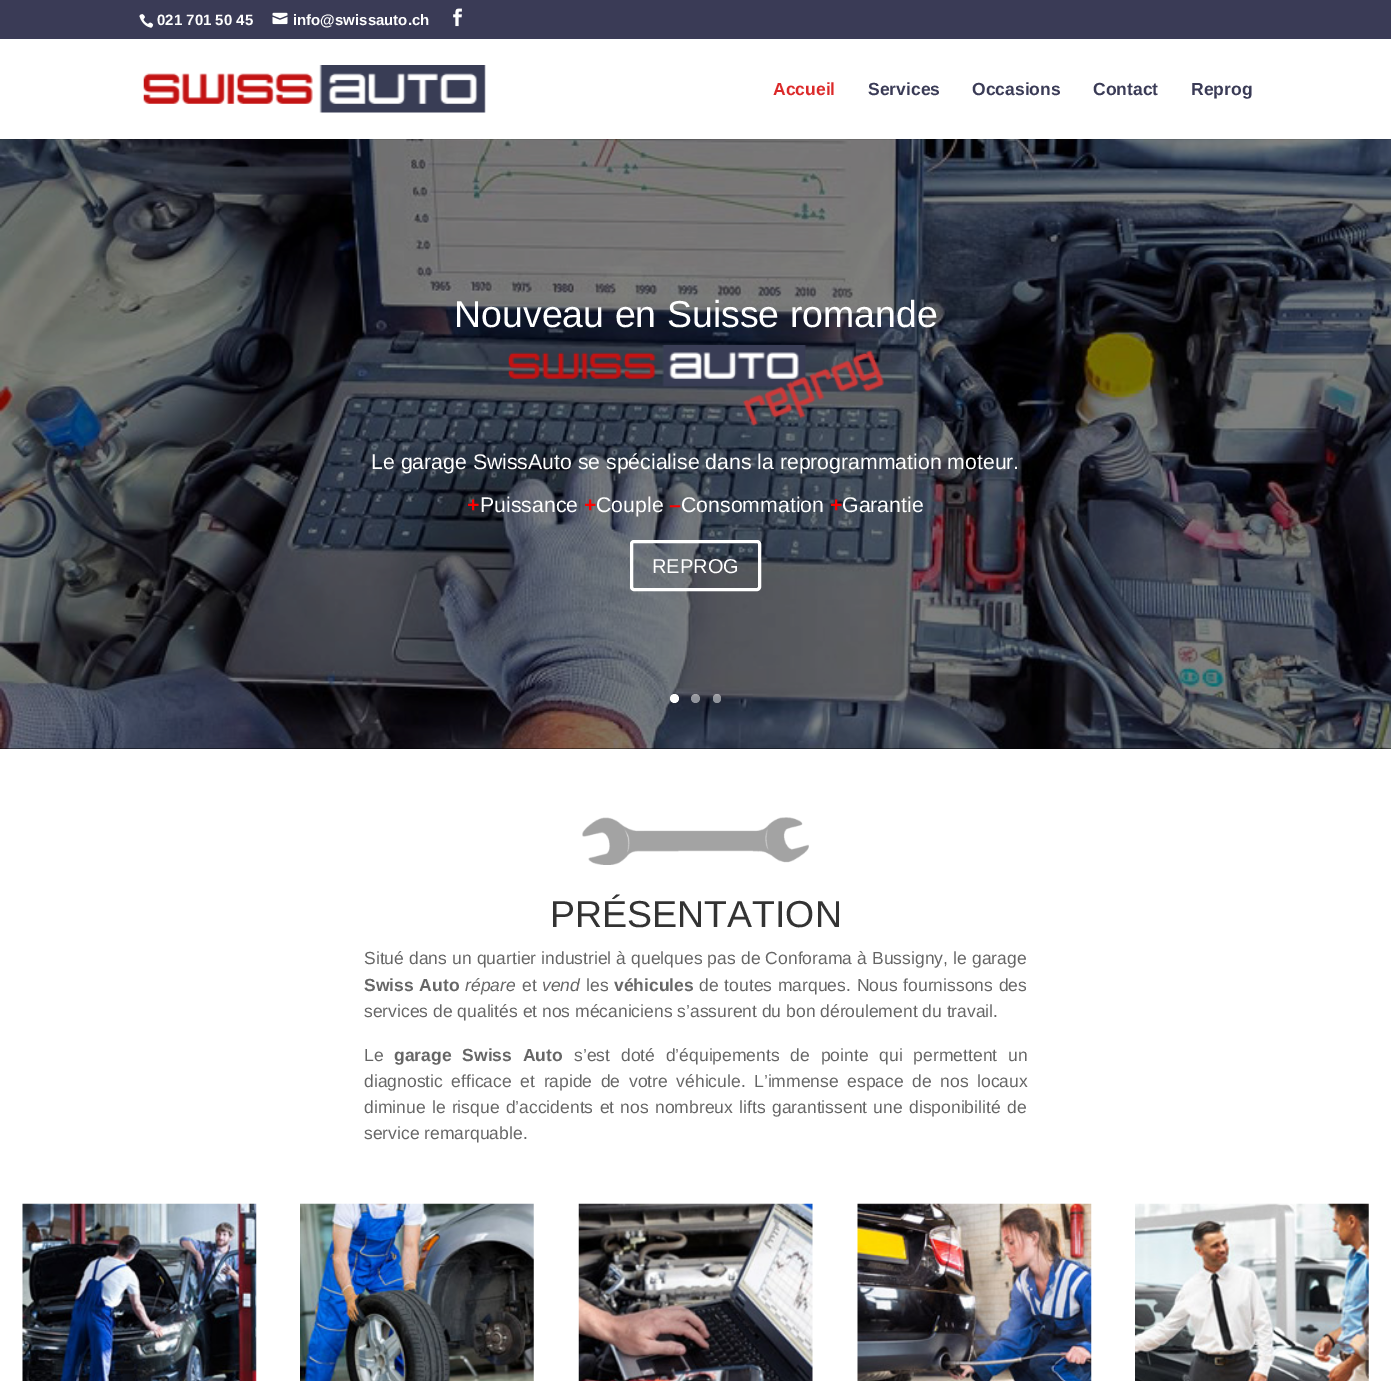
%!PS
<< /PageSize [1391 1381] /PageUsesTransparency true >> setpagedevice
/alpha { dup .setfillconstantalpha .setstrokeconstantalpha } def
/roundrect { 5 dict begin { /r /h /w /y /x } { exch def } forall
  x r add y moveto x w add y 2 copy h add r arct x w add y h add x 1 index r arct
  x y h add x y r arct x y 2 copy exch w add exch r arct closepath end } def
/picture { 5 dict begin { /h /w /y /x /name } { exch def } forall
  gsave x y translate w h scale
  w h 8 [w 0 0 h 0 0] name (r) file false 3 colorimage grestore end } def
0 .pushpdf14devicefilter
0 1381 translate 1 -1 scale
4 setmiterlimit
0.227 0.231 0.337 setrgbcolor
0 0 1391 1381 rectfill
(img1.rgb) 139 14 15 14 picture
/LiberationSans-Bold [15 0 0 -15 0 0] selectfont
1 setgray
157 25 moveto (021 701 50 45) show
(img2.rgb) 272 12 16 13 picture
293 25 moveto (info@swissauto.ch) show
(img3.rgb) 453 8 9 19 picture
0 setgray
0 748 1391 1 rectfill
(img5.rgb) 0 139 1391 610 picture
0.1 alpha
0 139 1391 1 rectfill
1 alpha
1 setgray
0 39 1391 100 rectfill
(img4.rgb) 143 65 343 48 picture
/LiberationSans-Bold [17.5 0 0 -17.5 0 0] selectfont
0.859 0.161 0.161 setrgbcolor
773 95 moveto (Accueil) show
0.227 0.231 0.337 setrgbcolor
868 95 moveto (Services) show
972 95 moveto (Occasions) show
1093 95 moveto (Contact) show
1191 95 moveto (Reprog) show
/LiberationSans-Regular [37.5 0 0 -37.5 0 0] selectfont
1 setgray
454 327 moveto (Nouveau en Suisse romande) show
(img6.rgb) 508 345 376 82 picture
/LiberationSans-Regular [21.25 0 0 -21.25 0 0] selectfont
371 469 moveto (Le garage SwissAuto se spécialise dans la reprogrammation moteur.) show
/LiberationSans-Bold [21.25 0 0 -21.25 0 0] selectfont
1 0 0 setrgbcolor
467 512 moveto (+) show
/LiberationSans-Regular [21.25 0 0 -21.25 0 0] selectfont
1 setgray
480 512 moveto (Puissance) show
/LiberationSans-Bold [21.25 0 0 -21.25 0 0] selectfont
1 0 0 setrgbcolor
584 512 moveto (+) show
/LiberationSans-Regular [21.25 0 0 -21.25 0 0] selectfont
1 setgray
596 512 moveto (Couple) show
/LiberationSans-Bold [21.25 0 0 -21.25 0 0] selectfont
1 0 0 setrgbcolor
669 512 moveto (–) show
/LiberationSans-Regular [21.25 0 0 -21.25 0 0] selectfont
1 setgray
681 512 moveto (Consommation) show
/LiberationSans-Bold [21.25 0 0 -21.25 0 0] selectfont
1 0 0 setrgbcolor
830 512 moveto (+) show
/LiberationSans-Regular [21.25 0 0 -21.25 0 0] selectfont
1 setgray
842 512 moveto (Garantie) show
3 setlinewidth
631.5 541.5 128 48 2.5 roundrect stroke
/LiberationSans-Regular [20 0 0 -20 0 0] selectfont
652 573 moveto (REPROG) show
newpath 674.5 698.5 4.5 0 360 arc closepath fill
0.5 alpha
newpath 695.5 698.5 4.5 0 360 arc closepath fill
713 694 8 9 4 roundrect fill
1 alpha
0 749 1391 632 rectfill
(img7.rgb) 582 817 227 48 picture
/LiberationSans-Regular [37.5 0 0 -37.5 0 0] selectfont
0.2 setgray
550 927 moveto (PRÉSENTATION) show
/LiberationSans-Regular [17.5 0 0 -17.5 0 0] selectfont
0.4 setgray
364 964 moveto 0.3 0 32 (Situé dans un quartier industriel à quelques pas de Conforama à Bussigny, le garage) widthshow
/LiberationSans-Bold [17.5 0 0 -17.5 0 0] selectfont
364 991 moveto 1 0 32 (Swiss Auto) widthshow
/LiberationSans-Italic [17.5 0 0 -17.5 0 0] selectfont
465 991 moveto (répare) show
/LiberationSans-Regular [17.5 0 0 -17.5 0 0] selectfont
522 991 moveto (et) show
/LiberationSans-Italic [17.5 0 0 -17.5 0 0] selectfont
542 991 moveto (vend) show
/LiberationSans-Regular [17.5 0 0 -17.5 0 0] selectfont
586 991 moveto (les) show
/LiberationSans-Bold [17.5 0 0 -17.5 0 0] selectfont
614 991 moveto (véhicules) show
/LiberationSans-Regular [17.5 0 0 -17.5 0 0] selectfont
699 991 moveto 1 0 32 (de toutes marques. Nous fournissons des) widthshow
364 1017 moveto (services de qualités et nos mécaniciens s’assurent du bon déroulement du travail.) show
364 1061 moveto (Le) show
/LiberationSans-Bold [17.5 0 0 -17.5 0 0] selectfont
394 1061 moveto 6 0 32 (garage Swiss Auto) widthshow
/LiberationSans-Regular [17.5 0 0 -17.5 0 0] selectfont
574 1061 moveto 6 0 32 (s’est doté d’équipements de pointe qui permettent un) widthshow
364 1087 moveto 3.75 0 32 (diagnostic efficace et rapide de votre véhicule. L’immense espace de nos locaux) widthshow
364 1113 moveto 1.5 0 32 (diminue le risque d’accidents et nos nombreux lifts garantissent une disponibilité de) widthshow
364 1139 moveto (service remarquable.) show
(img8.rgb) 22 1203 235 178 picture
(img9.rgb) 300 1203 234 178 picture
(img10.rgb) 578 1203 235 178 picture
(img11.rgb) 857 1203 235 178 picture
(img12.rgb) 1135 1203 234 178 picture
.poppdf14devicefilter showpage
